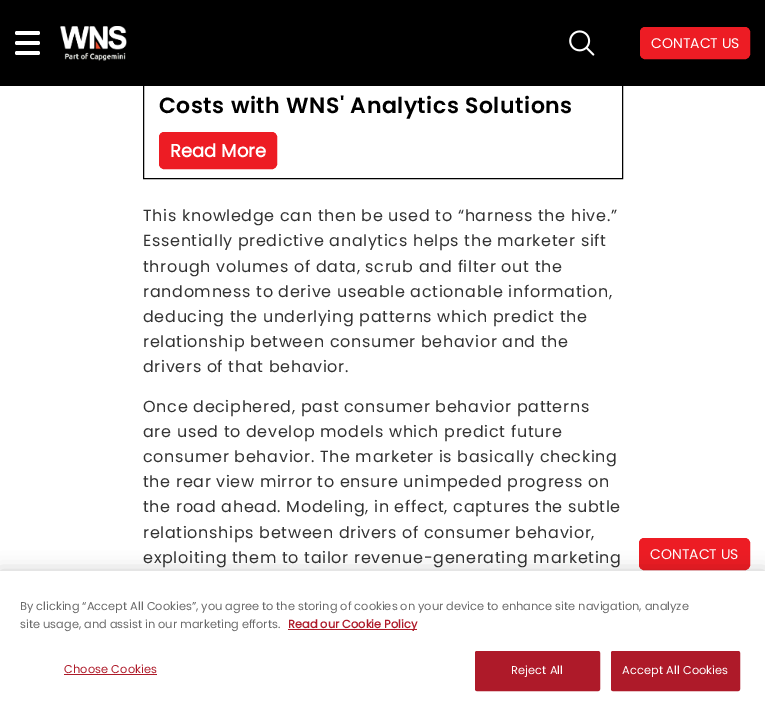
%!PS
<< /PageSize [765 713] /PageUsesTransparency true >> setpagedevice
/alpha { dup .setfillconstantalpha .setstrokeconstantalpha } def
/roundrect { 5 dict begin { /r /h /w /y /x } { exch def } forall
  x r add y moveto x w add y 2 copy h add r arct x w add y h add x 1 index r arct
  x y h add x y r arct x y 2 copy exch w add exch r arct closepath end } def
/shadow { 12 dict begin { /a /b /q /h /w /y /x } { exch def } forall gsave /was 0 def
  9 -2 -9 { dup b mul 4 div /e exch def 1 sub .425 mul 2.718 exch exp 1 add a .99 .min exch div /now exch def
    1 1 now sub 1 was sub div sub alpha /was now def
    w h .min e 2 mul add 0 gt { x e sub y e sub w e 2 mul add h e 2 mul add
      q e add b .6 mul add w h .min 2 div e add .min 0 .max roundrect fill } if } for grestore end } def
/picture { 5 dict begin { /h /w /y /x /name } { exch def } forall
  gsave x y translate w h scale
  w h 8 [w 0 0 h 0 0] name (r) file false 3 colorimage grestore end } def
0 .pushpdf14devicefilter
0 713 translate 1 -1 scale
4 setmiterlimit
1 setgray
0 0 765 713 rectfill
0 setgray
143.5 -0.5 479 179 rectstroke
0 0 765 86 rectfill
1 setgray
15 31 25 4 2 roundrect fill
15 41 25 4 2 roundrect fill
15 51 25 4 2 roundrect fill
(img1.rgb) 60 26 67 35 picture
(img2.rgb) 569 30 26 26 picture
0.929 0.11 0.141 setrgbcolor
640.5 27.5 109 31 4.5 roundrect gsave fill grestore
stroke
/Poppins-Regular [14 0 0 -14 0 0] selectfont
1 setgray
651 48 moveto (CONTACT US) show
/Poppins-SemiBold [22 0 0 -22 0 0] selectfont
0 setgray
159 113 moveto 0.5 0 (Costs with WNS' Analytics Solutions) ashow
0.929 0.11 0.141 setrgbcolor
159.5 132.5 117 36 4.5 roundrect gsave fill grestore
stroke
/Poppins-Bold [18 0 0 -18 0 0] selectfont
1 setgray
170 157 moveto (Read More) show
/Poppins-Regular [16 0 0 -16 0 0] selectfont
0.2 setgray
143 221 moveto 0.67 0 (This knowledge can then be used to “harness the hive.”) ashow
143 246 moveto 0.67 0 (Essentially predictive analytics helps the marketer sift) ashow
143 272 moveto 0.67 0 (through volumes of data, scrub and filter out the) ashow
143 297 moveto 0.67 0 (randomness to derive useable actionable information,) ashow
143 322 moveto 0.67 0 (deducing the underlying patterns which predict the) ashow
143 347 moveto 0.67 0 (relationship between consumer behavior and the) ashow
143 372 moveto 0.67 0 (drivers of that behavior.) ashow
143 412 moveto 0.67 0 (Once deciphered, past consumer behavior patterns) ashow
143 437 moveto 0.67 0 (are used to develop models which predict future) ashow
143 462 moveto 0.67 0 (consumer behavior. The marketer is basically checking) ashow
143 487 moveto 0.67 0 (the rear view mirror to ensure unimpeded progress on) ashow
143 512 moveto 0.67 0 (the road ahead. Modeling, in effect, captures the subtle) ashow
143 538 moveto 0.67 0 (relationships between drivers of consumer behavior,) ashow
143 563 moveto 0.67 0 (exploiting them to tailor revenue-generating marketing) ashow
0.929 0.11 0.141 setrgbcolor
639.5 538.5 110 31 4.5 roundrect gsave fill grestore
stroke
/Poppins-Regular [14 0 0 -14 0 0] selectfont
1 setgray
650 559 moveto (CONTACT US) show
0 setgray
0 571 765 142 0 9 0.2 shadow
1 setgray
0 571 765 142 rectfill
/Poppins-Regular [11.38 0 0 -11.38 0 0] selectfont
0.412 setgray
20 610 moveto (By clicking “Accept All Cookies”, you agree to the storing of cookies on your device to enhance site navigation, analyze) show
20 628 moveto (site usage, and assist in our marketing efforts.) show
0.682 0.102 0.161 setrgbcolor
288 629 129 1 rectfill
/Poppins-Bold [11.38 0 0 -11.38 0 0] selectfont
288 628 moveto (Read our Cookie Policy) show
/Poppins-Regular [11.38 0 0 -11.38 0 0] selectfont
64 673 moveto 0.1 0 (Choose Cookies) ashow
64 674 93 1 rectfill
475.5 651.5 124 39 1.5 roundrect gsave fill grestore
stroke
1 setgray
511 674 moveto 0.1 0 (Reject All) ashow
0.682 0.102 0.161 setrgbcolor
611.5 651.5 128 39 1.5 roundrect gsave fill grestore
stroke
1 setgray
622 674 moveto 0.1 0 (Accept All Cookies) ashow
.poppdf14devicefilter showpage
